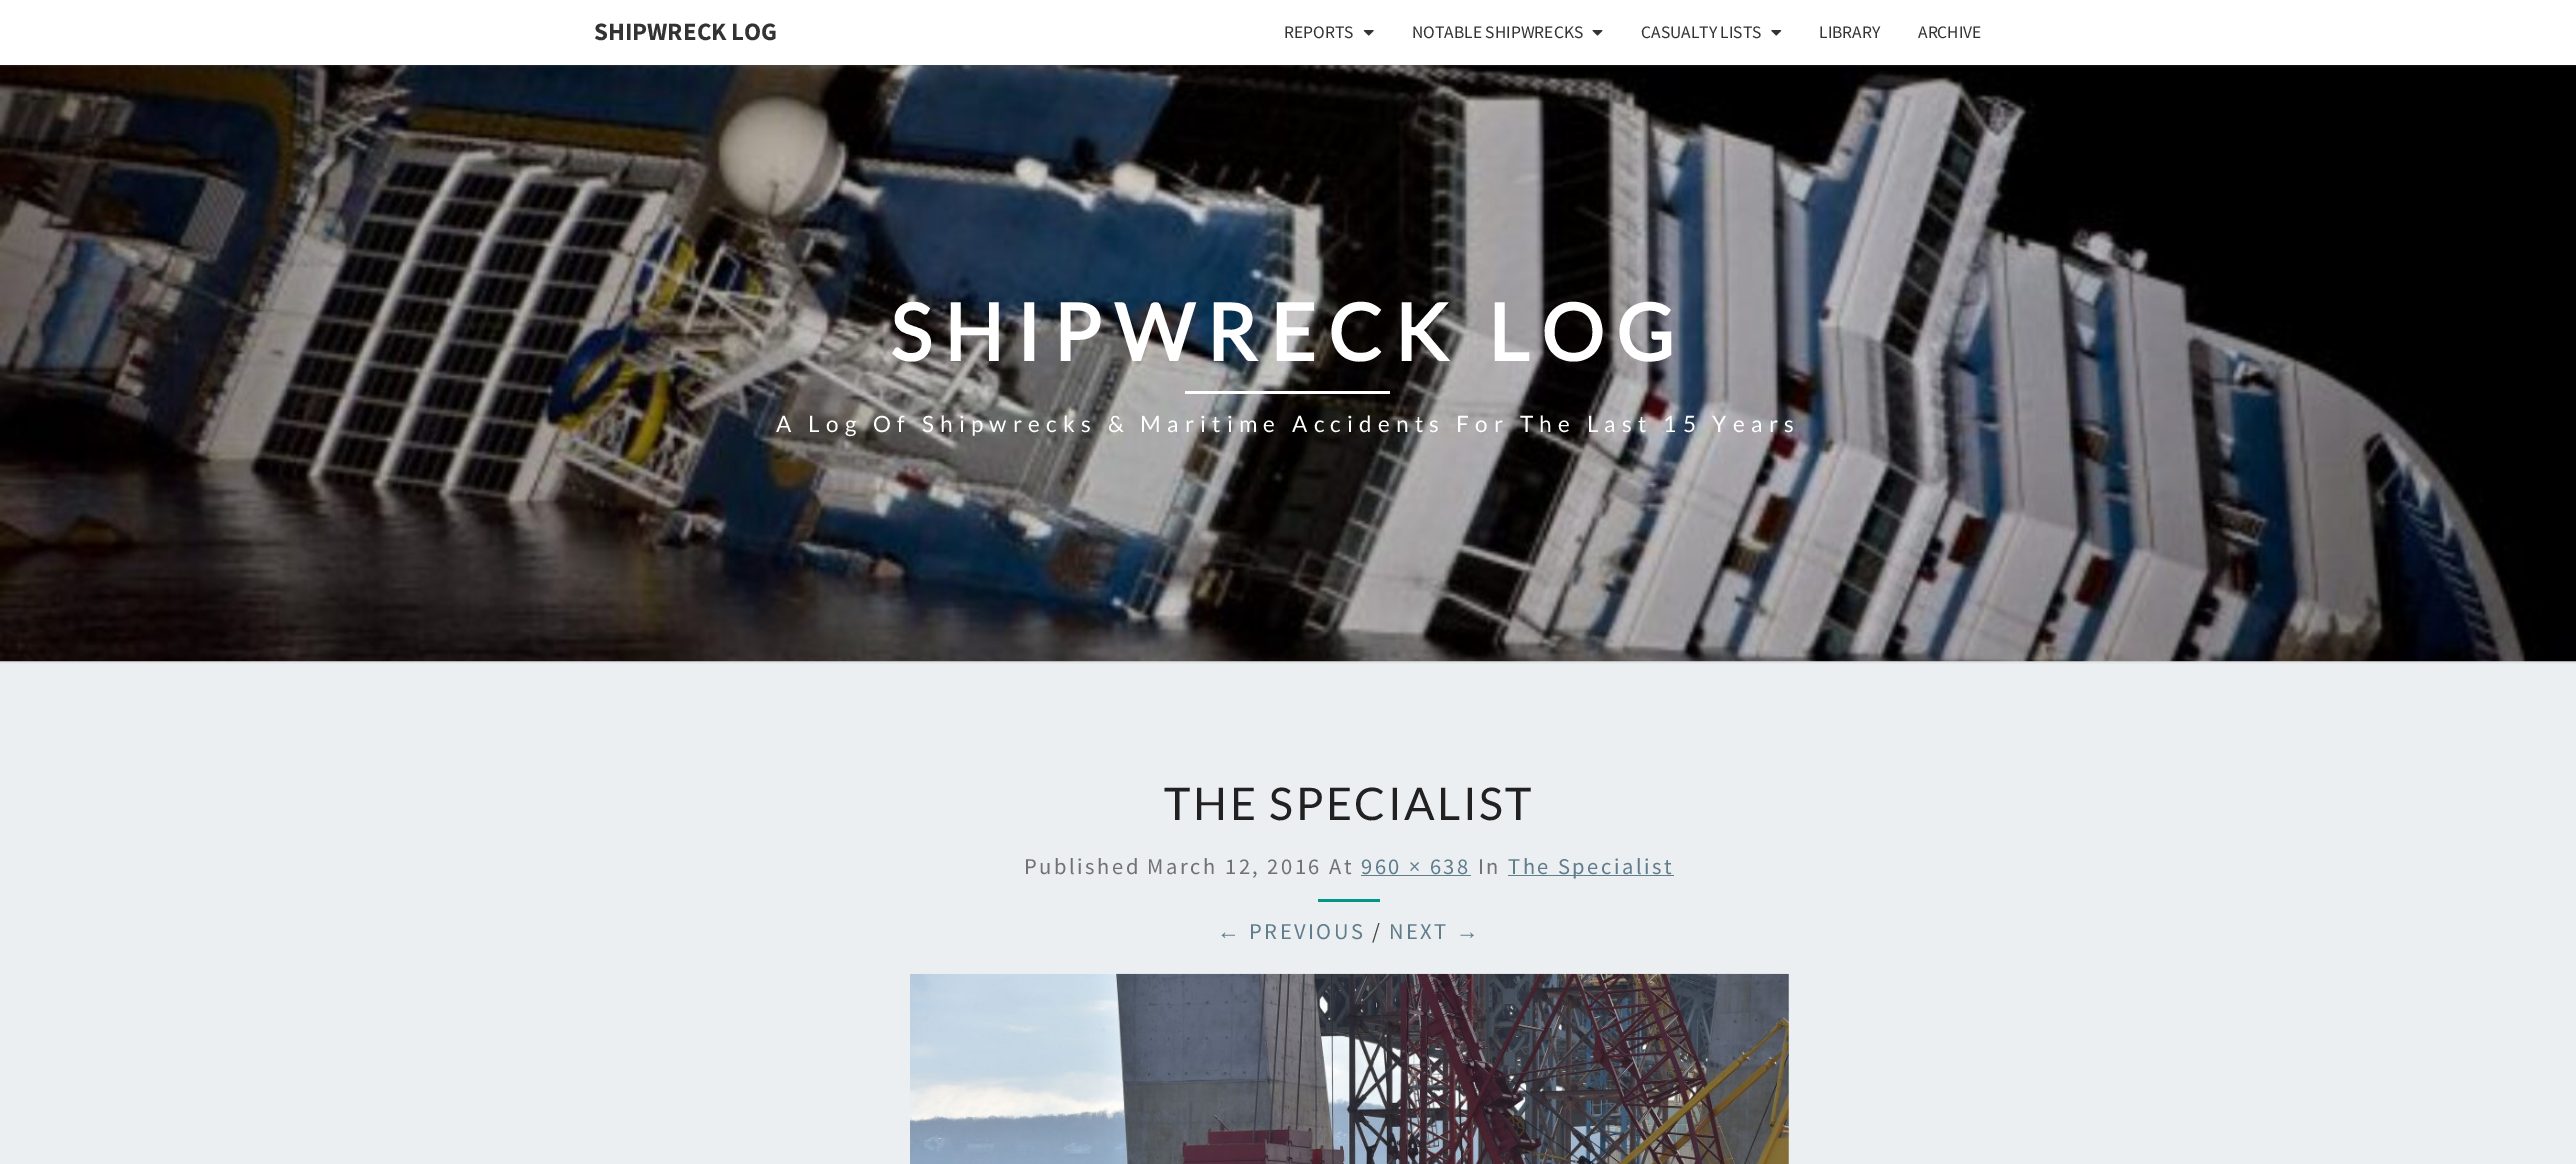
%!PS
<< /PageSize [2576 1164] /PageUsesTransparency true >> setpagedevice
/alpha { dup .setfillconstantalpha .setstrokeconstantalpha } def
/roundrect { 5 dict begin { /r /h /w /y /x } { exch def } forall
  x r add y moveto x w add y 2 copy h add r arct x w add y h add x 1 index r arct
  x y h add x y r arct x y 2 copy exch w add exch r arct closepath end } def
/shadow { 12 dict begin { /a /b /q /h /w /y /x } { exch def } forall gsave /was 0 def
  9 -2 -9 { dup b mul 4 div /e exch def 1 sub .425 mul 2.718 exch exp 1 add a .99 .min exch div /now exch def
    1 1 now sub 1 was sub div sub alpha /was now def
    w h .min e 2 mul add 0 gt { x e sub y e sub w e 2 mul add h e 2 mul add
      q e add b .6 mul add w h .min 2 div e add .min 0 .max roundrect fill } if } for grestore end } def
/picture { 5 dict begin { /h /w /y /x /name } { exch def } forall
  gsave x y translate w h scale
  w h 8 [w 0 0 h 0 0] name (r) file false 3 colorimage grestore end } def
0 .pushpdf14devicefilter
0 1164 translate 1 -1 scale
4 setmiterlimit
0.925 0.937 0.945 setrgbcolor
0 0 2576 1164 rectfill
0.714 setgray
-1 64 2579 599 0 1 0.3 shadow
(img4.rgb) 0 65 2576 597 picture
0.392 setgray
0 1 2576 65 0 0.5 0.2 shadow
1 setgray
0 0 2576 65 rectfill
/SourceSansPro-Bold [25 0 0 -25 0 0] selectfont
0.2 setgray
594 40 moveto (SHIPWRECK LOG) show
/SourceSansPro-Regular [17.5 0 0 -17.5 0 0] selectfont
1284 38 moveto (REPORTS) show
(img1.rgb) 1363 30 11 6 picture
1412 38 moveto (NOTABLE SHIPWRECKS) show
(img2.rgb) 1592 30 11 6 picture
1641 38 moveto (CASUALTY LISTS) show
(img3.rgb) 1771 30 11 6 picture
1819 38 moveto (LIBRARY) show
1918 38 moveto (ARCHIVE) show
/Lato-Bold [78.75 0 0 -78.75 0 0] selectfont
1 setgray
890 361 moveto 12.5 0 (SHIPWRECK LOG) ashow
1185 391 205 3 rectfill
/Lato-Regular [22.5 0 0 -22.5 0 0] selectfont
776 432 moveto 6.25 0 (A Log Of Shipwrecks & Maritime Accidents For The Last 15 Years) ashow
/Lato-Regular [45 0 0 -45 0 0] selectfont
0.129 setgray
1164 820 moveto 2.5 0 (THE SPECIALIST) ashow
/SourceSansPro-Regular [22.5 0 0 -22.5 0 0] selectfont
0.447 setgray
1024 874 moveto 2.5 0 (Published March 12, 2016 At) ashow
0.376 0.49 0.545 setrgbcolor
1361 874 moveto 2.5 0 (960 × 638) ashow
1361 875 110 1 rectfill
0.447 setgray
1478 874 moveto 2.5 0 (In) ashow
0.376 0.49 0.545 setrgbcolor
1508 875 166 1 rectfill
1508 874 moveto 2.5 0 (The Specialist) ashow
0 0.588 0.533 setrgbcolor
1318 899 62 3 rectfill
/LiberationSans-Regular [22.5 0 0 -22.5 0 0] selectfont
0.376 0.49 0.545 setrgbcolor
1217 939 moveto 2.5 0 (←) ashow
/SourceSansPro-Regular [22.5 0 0 -22.5 0 0] selectfont
1249 939 moveto 2.5 0 (PREVIOUS) ashow
0.259 setgray
1372 939 moveto 2.5 0 (/) ashow
0.376 0.49 0.545 setrgbcolor
1389 939 moveto 2.5 0 (NEXT) ashow
/LiberationSans-Regular [22.5 0 0 -22.5 0 0] selectfont
1456 939 moveto 2.5 0 (→) ashow
(img5.rgb) 910 973 879 191 picture
.poppdf14devicefilter showpage
